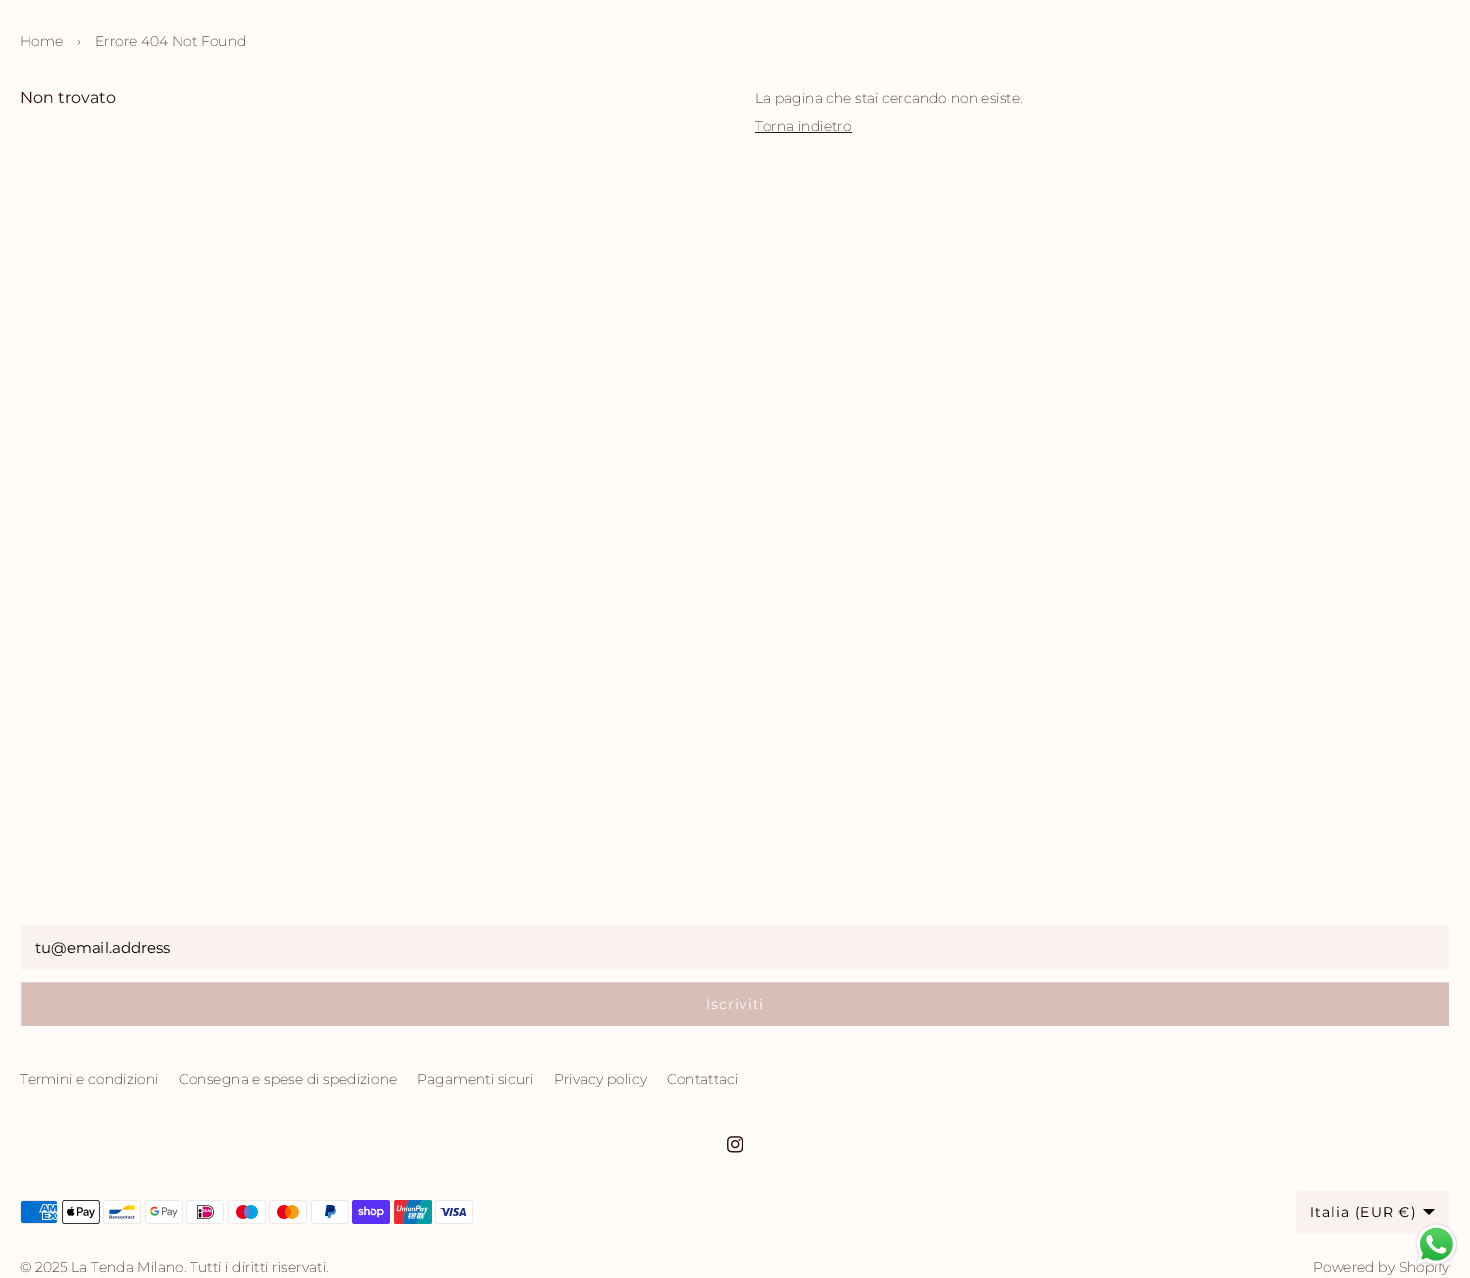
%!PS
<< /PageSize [1470 1278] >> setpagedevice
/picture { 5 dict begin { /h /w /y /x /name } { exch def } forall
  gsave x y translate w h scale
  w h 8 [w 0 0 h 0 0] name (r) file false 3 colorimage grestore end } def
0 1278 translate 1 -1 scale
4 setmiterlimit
1 0.984 0.976 setrgbcolor
0 0 1470 1278 rectfill
0.992 setgray
0 15 1470 1 rectfill
0 66 1470 1 rectfill
/Montserrat-ExtraLight [14 0 0 -14 0 0] selectfont
0.188 0.086 0.086 setrgbcolor
20 46 moveto (Home) show
77 46 moveto (›) show
95 46 moveto (Errore 404 Not Found) show
0.992 setgray
734 67 1 831 rectfill
/Montserrat-Regular [16 0 0 -16 0 0] selectfont
0.188 0.086 0.086 setrgbcolor
20 103 moveto (Non trovato) show
/Montserrat-ExtraLight [14 0 0 -14 0 0] selectfont
755 103 moveto (La pagina che stai cercando non esiste.) show
755 131 moveto (Torna indietro) show
755 132 97 1 rectfill
0.976 0.949 0.937 setrgbcolor
newpath 20.5 924.5 moveto 1449.5 924.5 lineto 1449.5 970.5 lineto 20.5 970.5 lineto closepath gsave fill grestore
0.992 setgray
stroke
0.851 0.745 0.718 setrgbcolor
newpath 20.5 981.5 moveto 1449.5 981.5 lineto 1449.5 1026.5 lineto 20.5 1026.5 lineto closepath gsave fill grestore
0.992 setgray
stroke
-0.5 898.5 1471 149 rectstroke
/Montserrat-Regular [15 0 0 -15 0 0] selectfont
0.012 setgray
35 953 moveto (tu@email.address) show
/Montserrat-Regular [14 0 0 -14 0 0] selectfont
0.992 setgray
706 1009 moveto 1 0 (Iscriviti) ashow
-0.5 1047.5 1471 64 rectstroke
/Montserrat-ExtraLight [14 0 0 -14 0 0] selectfont
0.188 0.086 0.086 setrgbcolor
20 1084 moveto (Termini e condizioni) show
179 1084 moveto (Consegna e spese di spedizione) show
417 1084 moveto (Pagamenti sicuri) show
554 1084 moveto (Privacy policy) show
667 1084 moveto (Contattaci) show
0.992 setgray
-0.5 1111.5 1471 68 rectstroke
(img1.rgb) 727 1136 16 17 picture
0 1245 1470 1 rectfill
(img2.rgb) 20 1200 38 24 picture
(img3.rgb) 62 1200 38 24 picture
(img4.rgb) 103 1200 38 24 picture
(img5.rgb) 145 1200 38 24 picture
(img6.rgb) 186 1200 38 24 picture
(img7.rgb) 228 1200 38 24 picture
(img8.rgb) 269 1200 38 24 picture
(img9.rgb) 311 1200 38 24 picture
(img10.rgb) 352 1200 38 24 picture
(img11.rgb) 394 1200 38 24 picture
(img12.rgb) 435 1200 38 24 picture
0.976 0.949 0.937 setrgbcolor
newpath 1295.5 1189.5 moveto 1449.5 1189.5 lineto 1449.5 1234.5 lineto 1295.5 1234.5 lineto closepath gsave fill grestore
0.992 setgray
stroke
/Montserrat-Regular [14 0 0 -14 0 0] selectfont
0.012 setgray
1310 1217 moveto 1 0 (Italia \(EUR €\)) ashow
newpath 1423 1209 moveto 1435 1209 lineto 1429 1215 lineto closepath fill
/Montserrat-ExtraLight [14 0 0 -14 0 0] selectfont
0.188 0.086 0.086 setrgbcolor
20 1272 moveto (© 2025 La Tenda Milano. Tutti i diritti riservati.) show
1313 1272 moveto (Powered by Shopify) show
(img13.rgb) 1415 1223 43 43 picture
showpage
